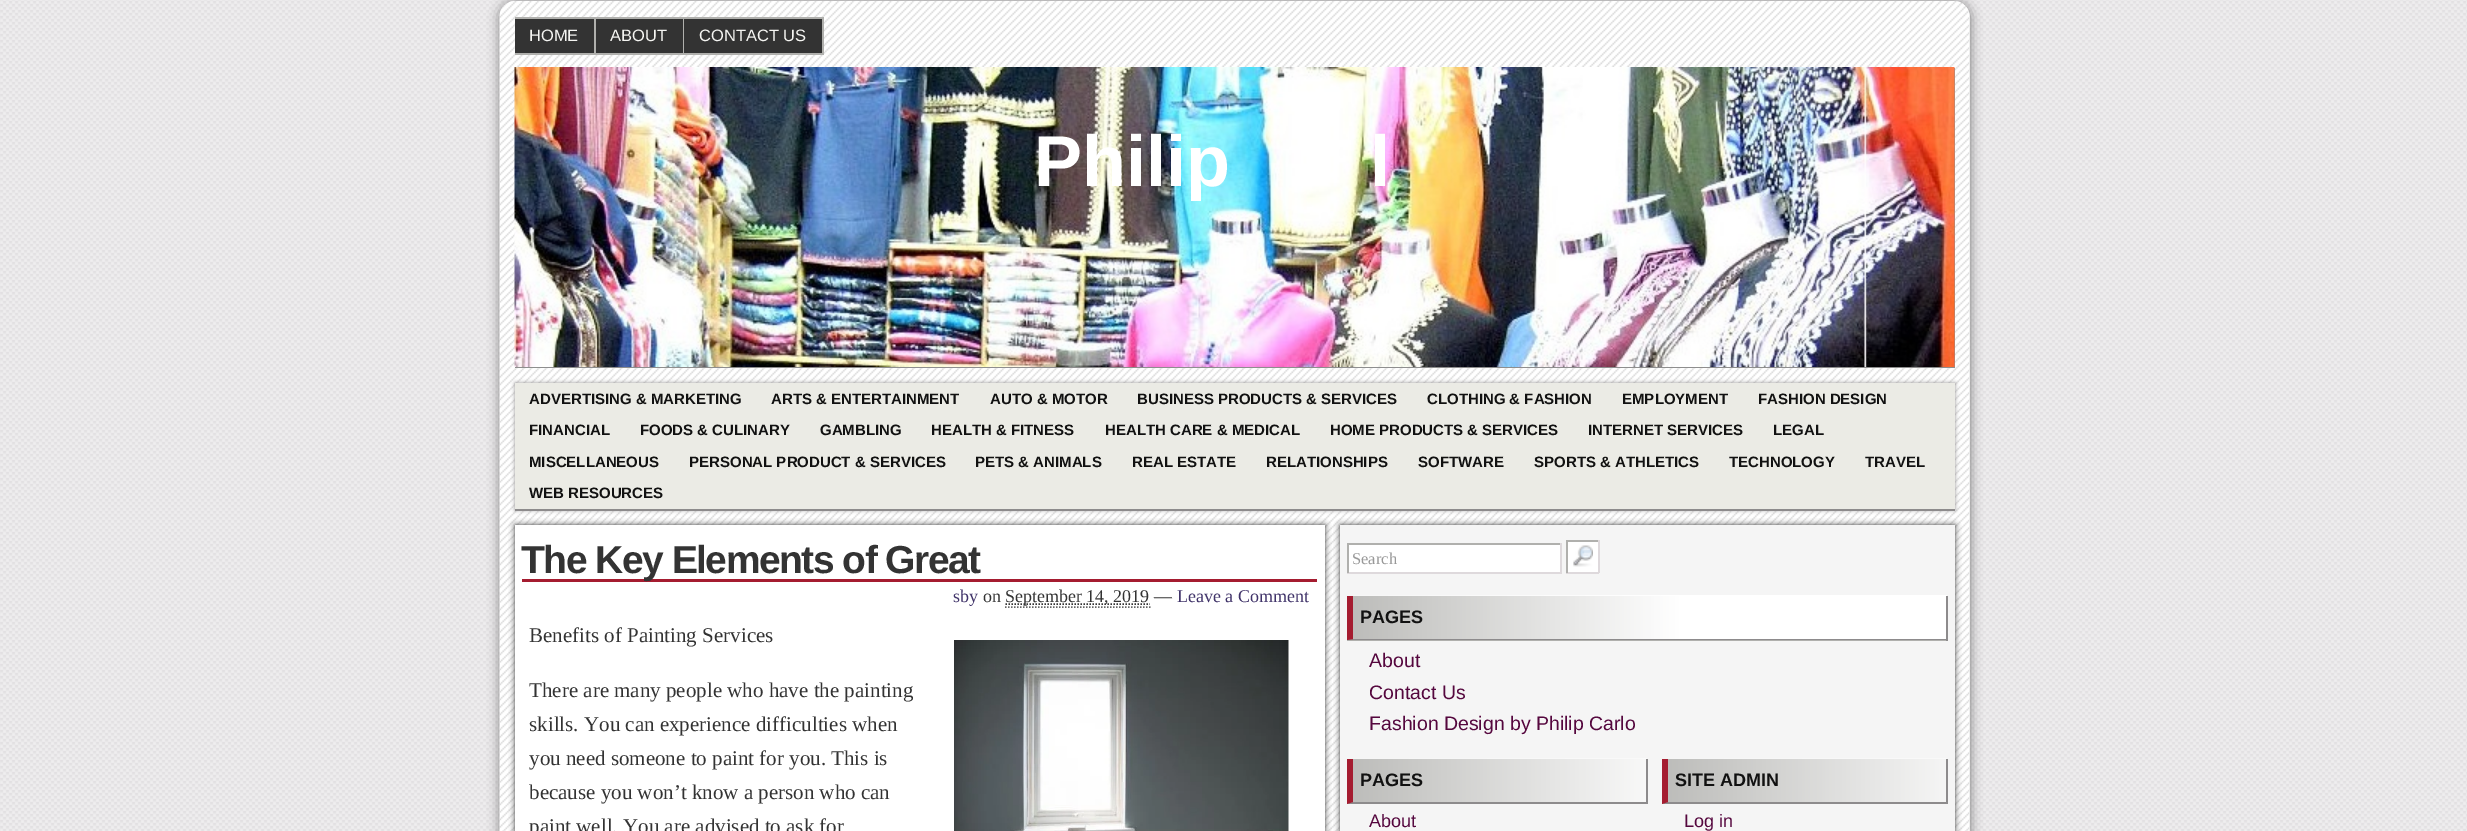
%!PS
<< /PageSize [2467 831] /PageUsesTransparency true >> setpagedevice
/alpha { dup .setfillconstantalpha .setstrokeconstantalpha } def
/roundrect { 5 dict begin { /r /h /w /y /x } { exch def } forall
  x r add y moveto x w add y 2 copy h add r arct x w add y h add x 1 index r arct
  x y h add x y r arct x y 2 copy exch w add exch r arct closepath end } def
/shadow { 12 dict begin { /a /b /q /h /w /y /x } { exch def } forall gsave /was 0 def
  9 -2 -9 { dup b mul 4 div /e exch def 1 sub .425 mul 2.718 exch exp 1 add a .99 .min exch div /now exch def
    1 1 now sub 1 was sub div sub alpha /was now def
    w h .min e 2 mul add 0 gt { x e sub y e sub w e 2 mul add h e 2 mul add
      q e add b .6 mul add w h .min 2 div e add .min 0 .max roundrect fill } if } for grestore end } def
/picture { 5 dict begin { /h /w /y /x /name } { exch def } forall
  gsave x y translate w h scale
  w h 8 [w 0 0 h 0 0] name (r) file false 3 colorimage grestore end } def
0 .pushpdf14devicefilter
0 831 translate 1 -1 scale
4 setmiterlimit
1 setgray
0 0 2467 831 rectfill
(img1.rgb) 0 0 2467 831 picture
0 setgray
500 2 1470 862 15 6 0.5 shadow
0.922 setgray
500 2 1470 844 15 roundrect fill
(img2.rgb) 499 1 1471 830 picture
0.69 0.69 0.678 setrgbcolor
515 53 309 2 rectfill
0.2 setgray
515 19 79 34 rectfill
0.69 0.69 0.678 setrgbcolor
515 17 169 2 rectfill
594 17 2 37 rectfill
/LiberationSans-Regular [16.5 0 0 -16.5 0 0] selectfont
0.961 0.961 0.949 setrgbcolor
529 41 moveto (HOME) show
0.2 setgray
596 19 87 34 rectfill
0.69 0.69 0.678 setrgbcolor
683 17 2 37 rectfill
0.961 0.961 0.949 setrgbcolor
610 41 moveto (ABOUT) show
0.2 setgray
684 19 138 34 rectfill
0.69 0.69 0.678 setrgbcolor
684 17 140 2 rectfill
822 17 2 37 rectfill
0.961 0.961 0.949 setrgbcolor
699 41 moveto (CONTACT US) show
0.557 setgray
515 68 1440 300 rectfill
(img3.rgb) 514 67 1441 300 picture
/LiberationSans-Bold [72 0 0 -72 0 0] selectfont
1 setgray
1034 186 moveto (Philip) show
1370 186 moveto (l) show
0.553 0.545 0.549 setrgbcolor
515 383 1440 127 0 2 1 shadow
0.922 0.922 0.898 setrgbcolor
515 383 1440 126 rectfill
0.553 0.545 0.549 setrgbcolor
515 509 1440 2 rectfill
/LiberationSans-Bold [15 0 0 -15 0 0] selectfont
0.067 setgray
529 404 moveto (ADVERTISING & MARKETING) show
771 404 moveto (ARTS & ENTERTAINMENT) show
990 404 moveto (AUTO & MOTOR) show
1137 404 moveto (BUSINESS PRODUCTS & SERVICES) show
1427 404 moveto (CLOTHING & FASHION) show
1622 404 moveto (EMPLOYMENT) show
1758 404 moveto (FASHION DESIGN) show
529 435 moveto (FINANCIAL) show
640 435 moveto (FOODS & CULINARY) show
820 435 moveto (GAMBLING) show
931 435 moveto (HEALTH & FITNESS) show
1105 435 moveto (HEALTH CARE & MEDICAL) show
1330 435 moveto (HOME PRODUCTS & SERVICES) show
1588 435 moveto (INTERNET SERVICES) show
1773 435 moveto (LEGAL) show
529 467 moveto (MISCELLANEOUS) show
689 467 moveto (PERSONAL PRODUCT & SERVICES) show
975 467 moveto (PETS & ANIMALS) show
1132 467 moveto (REAL ESTATE) show
1266 467 moveto (RELATIONSHIPS) show
1418 467 moveto (SOFTWARE) show
1534 467 moveto (SPORTS & ATHLETICS) show
1729 467 moveto (TECHNOLOGY) show
1865 467 moveto (TRAVEL) show
529 498 moveto (WEB RESOURCES) show
0.2 setgray
515 525 810 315 0 3 1 shadow
1 setgray
515 525 810 306 rectfill
0.647 0.11 0.188 setrgbcolor
522 579 795 3 rectfill
/LiberationSans-Bold [39 0 0 -39 0 0] selectfont
0.2 setgray
521 573 moveto -1.5 0 (The Key Elements of Great) ashow
/LiberationSerif-Regular [18 0 0 -18 0 0] selectfont
0.251 0.2 0.412 setrgbcolor
953 602 moveto (sby) show
0.2 setgray
983 602 moveto (on) show
1.5 setlinewidth
[1.5 1.5] 0 setdash
newpath 1005.5 604 moveto 1150 604 lineto stroke
1005 602 moveto (September 14, 2019 —) show
0.4 setgray
newpath 1005 607 moveto 1150.5 607 lineto stroke
0.251 0.2 0.412 setrgbcolor
1177 602 moveto (Leave a Comment) show
/LiberationSerif-Regular [21 0 0 -21 0 0] selectfont
0.2 setgray
529 642 moveto (Benefits of Painting Services) show
(img4.rgb) 954 640 335 191 picture
529 697 moveto (There are many people who have the painting) show
529 731 moveto (skills. You can experience difficulties when) show
529 765 moveto (you need someone to paint for you. This is) show
529 799 moveto (because you won’t know a person who can) show
529 833 moveto (paint well. You are advised to ask for) show
1340 525 615 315 0 3 1 shadow
0.961 setgray
1340 525 615 306 rectfill
0.69 0.69 0.678 setrgbcolor
1566 540 33 2 rectfill
0.871 0.851 0.863 setrgbcolor
1598 540 2 33 rectfill
1566 572 33 2 rectfill
0.69 0.69 0.678 setrgbcolor
1566 540 2 33 rectfill
1 setgray
1568 542 30 30 rectfill
1349 545 211 27 rectfill
0.69 0.69 0.678 setrgbcolor
1347 543 215 2 rectfill
0.871 0.851 0.863 setrgbcolor
1560 543 2 30 rectfill
1347 572 215 2 rectfill
0.69 0.69 0.678 setrgbcolor
1347 543 2 30 rectfill
/LiberationSerif-Regular [16.5 0 0 -16.5 0 0] selectfont
0.6 setgray
1352 564 moveto (Search) show
(img5.rgb) 1573 545 20 22 picture
0.69 0.69 0.678 setrgbcolor
1347 596 599 45 rectfill
(img6.rgb) 1353 595 594 44 picture
0.553 0.545 0.549 setrgbcolor
1946 596 2 45 rectfill
newpath 1947 640 moveto 1347 640 lineto 1353 639 lineto 1946 639 lineto closepath fill
0.647 0.11 0.188 setrgbcolor
newpath 1347 640 moveto 1347 596 lineto 1353 596 lineto 1353 639 lineto closepath fill
/LiberationSans-Bold [18 0 0 -18 0 0] selectfont
0.067 setgray
1360 623 moveto (PAGES) show
/LiberationSans-Regular [19.5 0 0 -19.5 0 0] selectfont
0.333 0.027 0.243 setrgbcolor
1369 667 moveto (About) show
1369 699 moveto (Contact Us) show
1369 730 moveto (Fashion Design by Philip Carlo) show
0.69 0.69 0.678 setrgbcolor
1347 759 299 45 rectfill
(img7.rgb) 1353 758 294 44 picture
0.553 0.545 0.549 setrgbcolor
1646 759 2 45 rectfill
newpath 1647 804 moveto 1347 804 lineto 1353 802 lineto 1646 802 lineto closepath fill
0.647 0.11 0.188 setrgbcolor
newpath 1347 804 moveto 1347 759 lineto 1353 759 lineto 1353 802 lineto closepath fill
/LiberationSans-Bold [18 0 0 -18 0 0] selectfont
0.067 setgray
1360 786 moveto (PAGES) show
/LiberationSans-Regular [18 0 0 -18 0 0] selectfont
0.333 0.027 0.243 setrgbcolor
1369 827 moveto (About) show
0.69 0.69 0.678 setrgbcolor
1662 759 284 45 rectfill
(img8.rgb) 1668 758 279 44 picture
0.553 0.545 0.549 setrgbcolor
1946 759 2 45 rectfill
newpath 1947 804 moveto 1662 804 lineto 1668 802 lineto 1946 802 lineto closepath fill
0.647 0.11 0.188 setrgbcolor
newpath 1662 804 moveto 1662 759 lineto 1668 759 lineto 1668 802 lineto closepath fill
/LiberationSans-Bold [18 0 0 -18 0 0] selectfont
0.067 setgray
1675 786 moveto (SITE ADMIN) show
/LiberationSans-Regular [18 0 0 -18 0 0] selectfont
0.333 0.027 0.243 setrgbcolor
1684 827 moveto (Log in) show
.poppdf14devicefilter showpage
